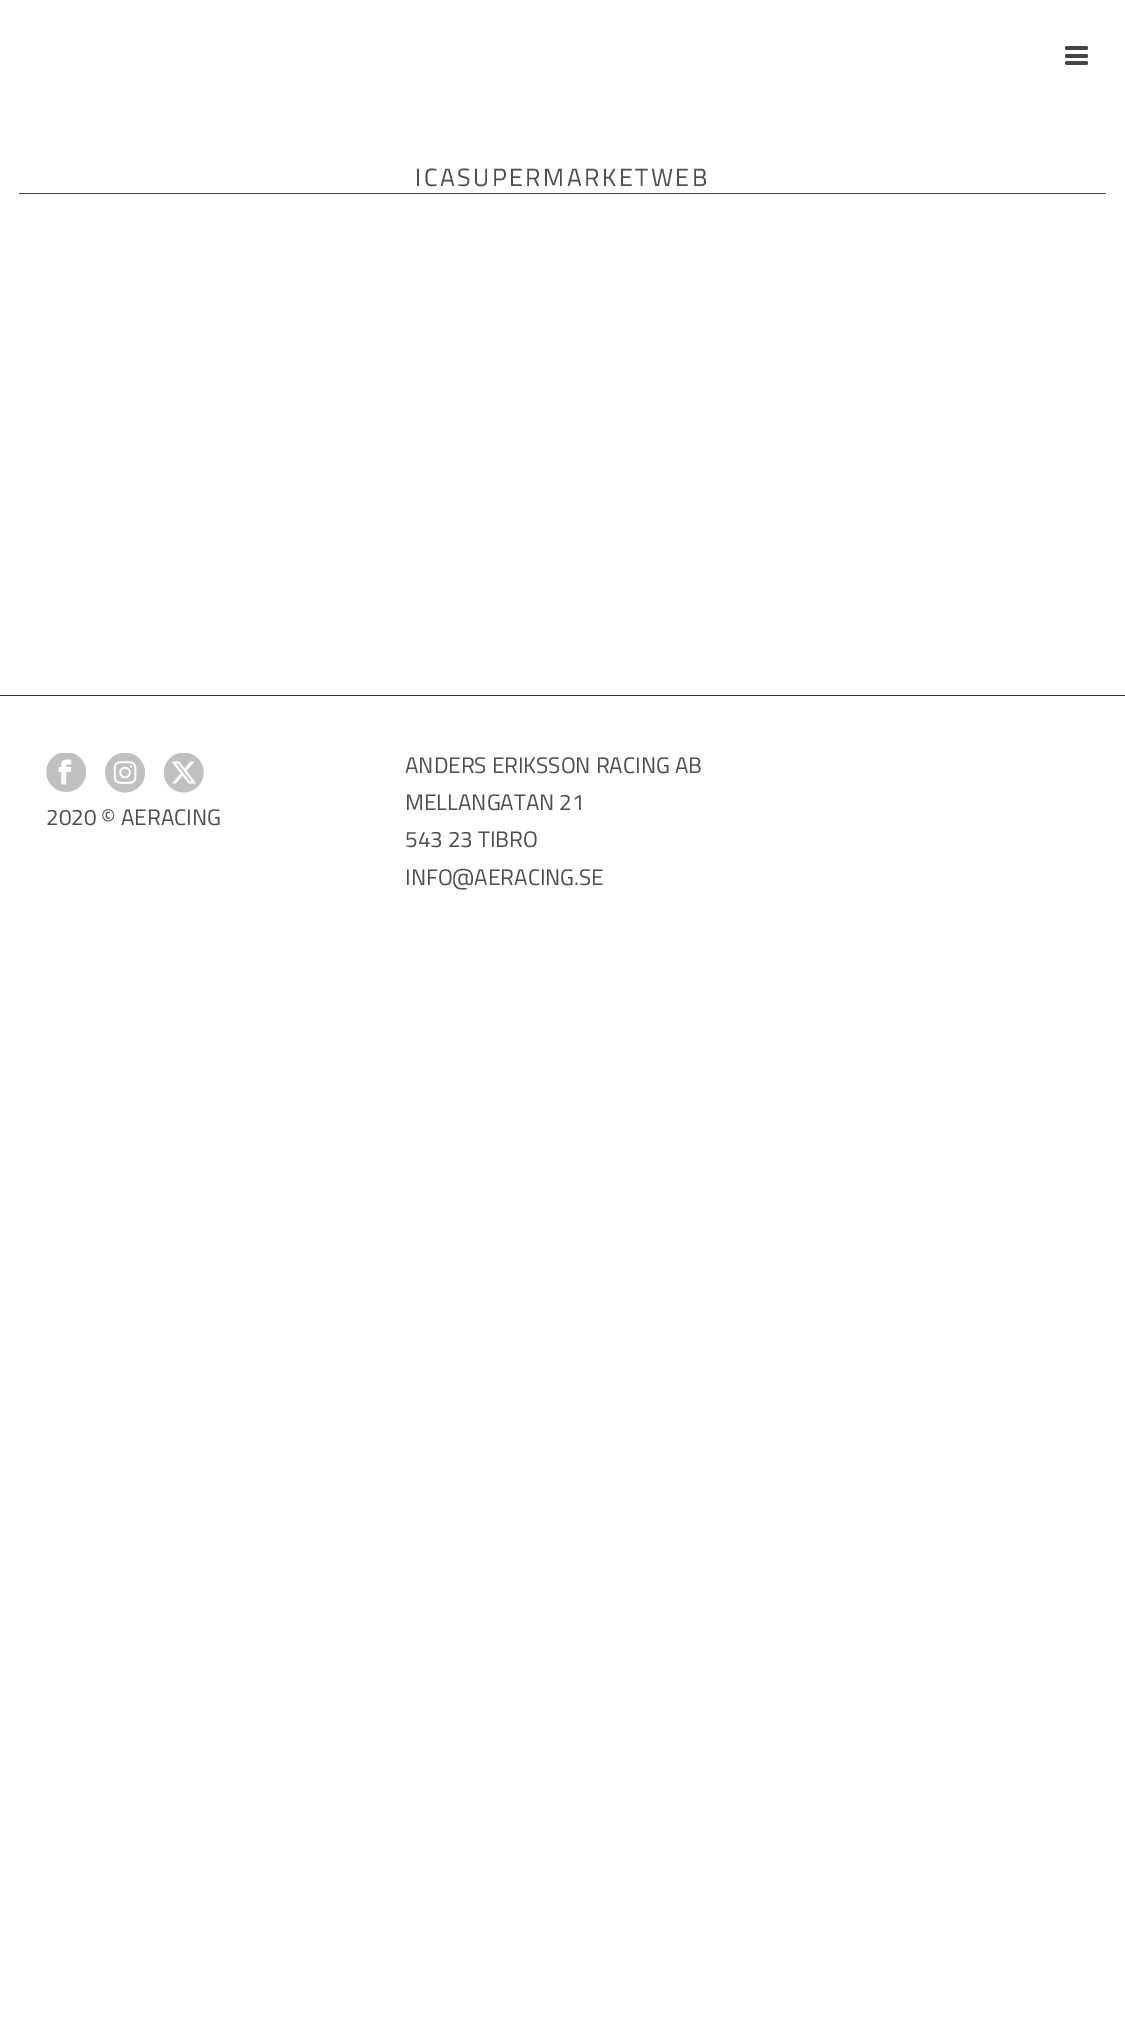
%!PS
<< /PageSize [1125 2020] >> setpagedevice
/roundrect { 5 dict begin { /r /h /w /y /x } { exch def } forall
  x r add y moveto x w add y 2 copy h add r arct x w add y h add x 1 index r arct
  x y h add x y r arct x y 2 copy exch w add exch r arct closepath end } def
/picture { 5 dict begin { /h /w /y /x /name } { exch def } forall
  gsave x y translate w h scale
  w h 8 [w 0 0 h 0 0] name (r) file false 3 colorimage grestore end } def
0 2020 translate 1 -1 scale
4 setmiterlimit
1 setgray
0 0 1125 2020 rectfill
0.267 setgray
1065 46 23 4 2 roundrect fill
1065 54 23 4 2 roundrect fill
1065 61 23 4 2 roundrect fill
19 193 1087 1 rectfill
/TitilliumWeb-Regular [25 0 0 -25 0 0] selectfont
0.302 setgray
415 186 moveto 2.5 0 (ICASUPERMARKETWEB) ashow
0.2 setgray
0 695 1125 1 rectfill
(img1.rgb) 46 753 40 39 picture
(img2.rgb) 105 753 40 40 picture
(img3.rgb) 164 753 40 40 picture
/TitilliumWeb-Regular [22.5 0 0 -22.5 0 0] selectfont
0.302 setgray
46 825 moveto (2020 © AERACING) show
405 773 moveto (ANDERS ERIKSSON RACING AB) show
405 810 moveto (MELLANGATAN 21) show
405 847 moveto (543 23 TIBRO) show
405 885 moveto (INFO@AERACING.SE) show
showpage
